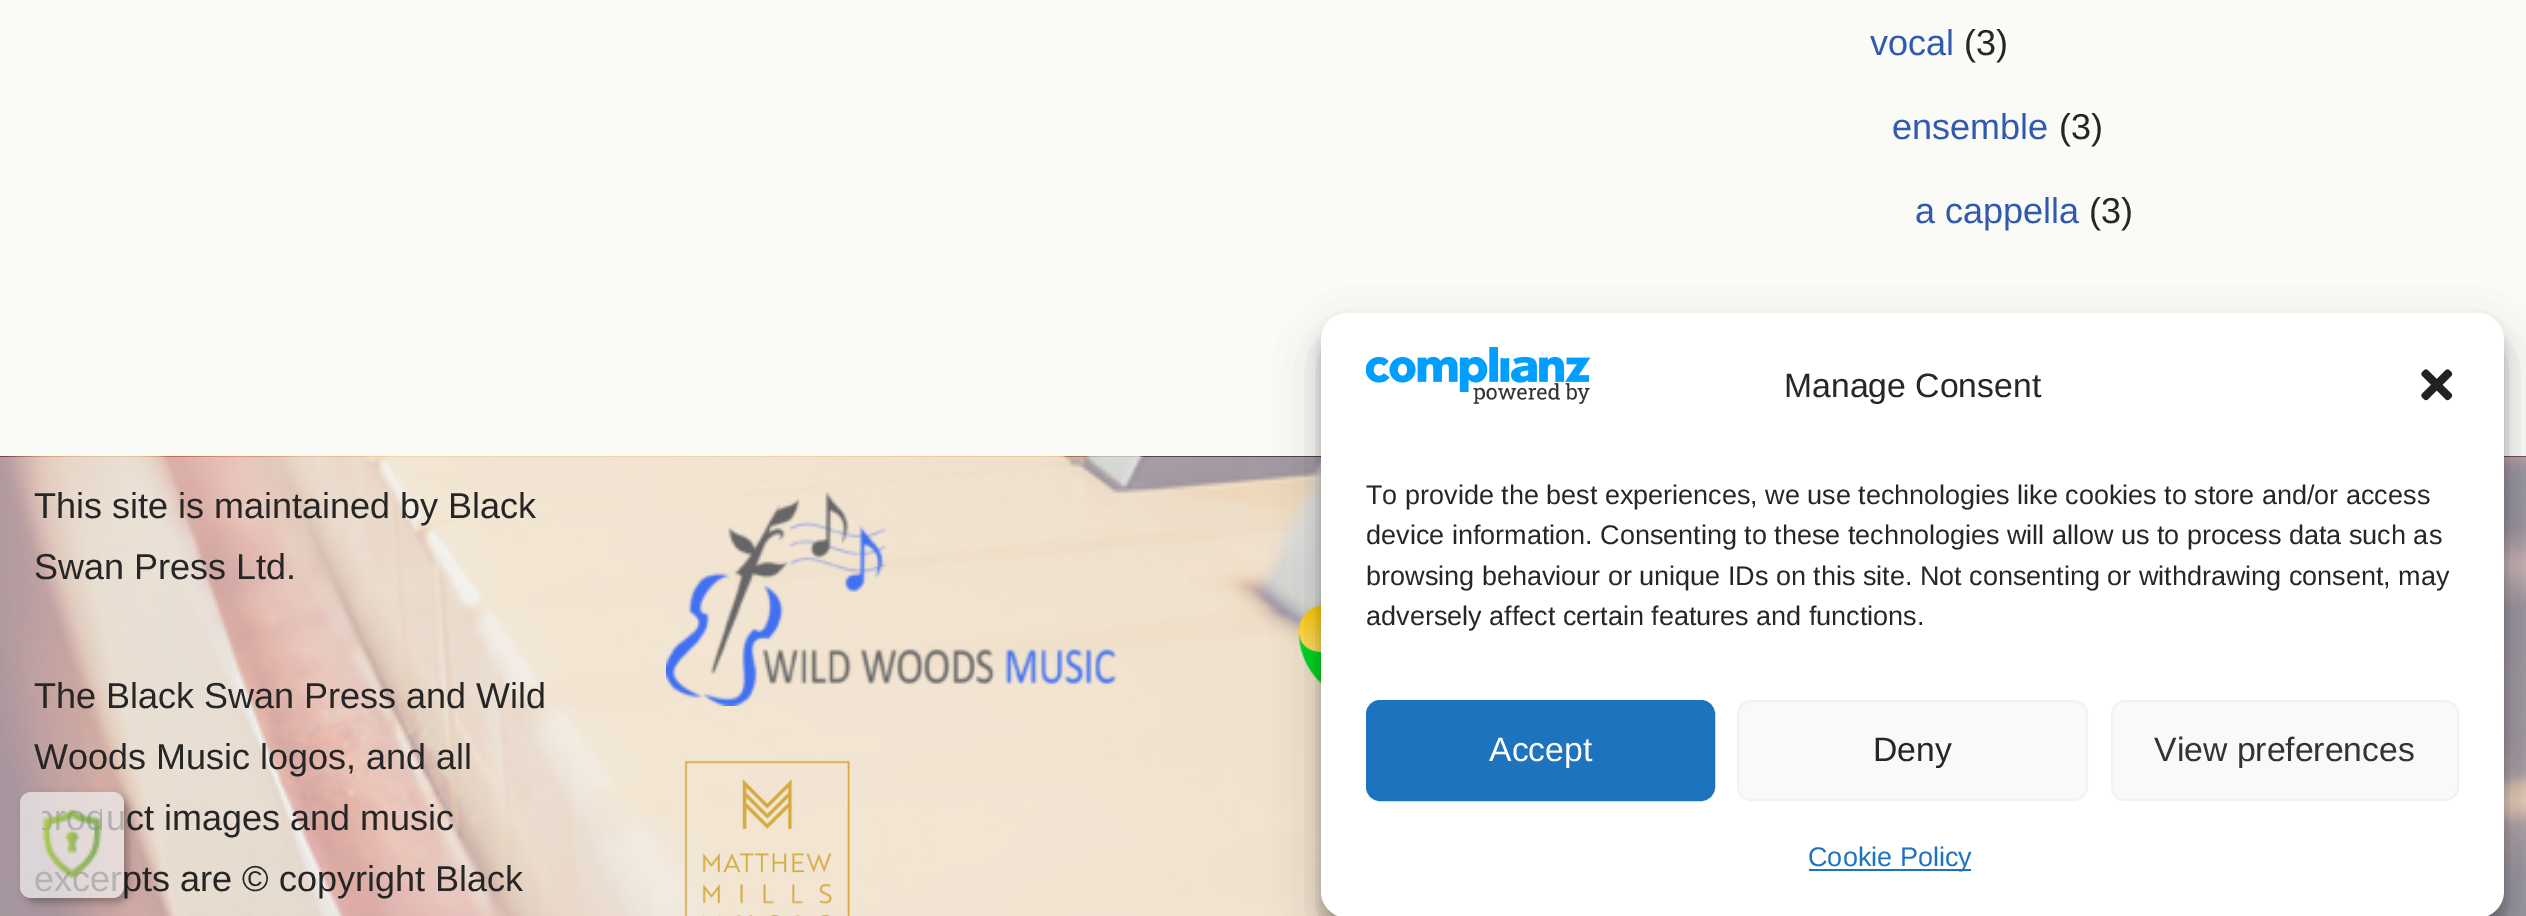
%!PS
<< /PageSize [2526 916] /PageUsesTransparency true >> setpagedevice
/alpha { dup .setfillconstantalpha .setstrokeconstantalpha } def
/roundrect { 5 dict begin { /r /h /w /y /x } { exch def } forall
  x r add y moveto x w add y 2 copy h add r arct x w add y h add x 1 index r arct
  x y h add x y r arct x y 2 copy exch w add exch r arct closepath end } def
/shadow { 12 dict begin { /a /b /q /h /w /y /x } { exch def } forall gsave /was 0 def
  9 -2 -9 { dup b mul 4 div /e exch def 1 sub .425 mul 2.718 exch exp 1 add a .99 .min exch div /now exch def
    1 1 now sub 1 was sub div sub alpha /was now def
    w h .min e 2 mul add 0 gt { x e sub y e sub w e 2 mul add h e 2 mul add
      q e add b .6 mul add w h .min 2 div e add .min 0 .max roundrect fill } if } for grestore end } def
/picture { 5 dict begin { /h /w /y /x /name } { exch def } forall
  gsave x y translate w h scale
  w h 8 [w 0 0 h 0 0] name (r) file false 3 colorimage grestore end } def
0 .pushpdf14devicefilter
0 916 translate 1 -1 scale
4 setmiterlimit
0.98 0.98 0.969 setrgbcolor
0 0 2526 916 rectfill
/LiberationSans-Regular [36 0 0 -36 0 0] selectfont
0.184 0.353 0.682 setrgbcolor
1870 55 moveto (vocal) show
0.153 0.149 0.149 setrgbcolor
1964 55 moveto (\(3\)) show
0.184 0.353 0.682 setrgbcolor
1892 139 moveto (ensemble) show
0.153 0.149 0.149 setrgbcolor
2059 139 moveto (\(3\)) show
0.184 0.353 0.682 setrgbcolor
1915 223 moveto (a cappella) show
0.153 0.149 0.149 setrgbcolor
2089 223 moveto (\(3\)) show
(img1.rgb) 0 456 2526 460 picture
34 518 moveto (This site is maintained by Black) show
34 579 moveto (Swan Press Ltd.) show
34 708 moveto (The Black Swan Press and Wild) show
34 769 moveto (Woods Music logos, and all) show
106 830 moveto (uct images and music) show
34 891 moveto (excerpts are © copyright Black) show
(img2.rgb) 666 492 450 214 picture
(img3.rgb) 684 760 166 156 picture
(img4.rgb) 1298 605 23 79 picture
gsave
newpath 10 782 moveto 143 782 lineto 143 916 lineto 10 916 lineto closepath 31 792 moveto 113 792 lineto 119 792 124 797 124 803 curveto 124 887 lineto 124 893 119 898 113 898 curveto 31 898 lineto 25 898 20 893 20 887 curveto 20 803 lineto 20 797 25 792 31 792 curveto closepath eoclip newpath
0 setgray
25 797 103 105 11 4.5 0.33 shadow
grestore
0.69 alpha
0.945 setgray
20 792 104 106 11 roundrect fill
1 alpha
(img5.rgb) 42 809 60 70 picture
0 setgray
1321 326 1183 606 27 7 0.23 shadow
1321 335 1183 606 27 22.5 0.19 shadow
1 setgray
1321 313 1183 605 27 roundrect fill
(img6.rgb) 1366 347 225 57 picture
/LiberationSans-Regular [33.75 0 0 -33.75 0 0] selectfont
0.153 0.149 0.149 setrgbcolor
1784 397 moveto (Manage Consent) show
(img7.rgb) 2421 369 32 32 picture
/LiberationSans-Regular [27 0 0 -27 0 0] selectfont
1366 504 moveto (To provide the best experiences, we use technologies like cookies to store and/or access) show
1366 544 moveto (device information. Consenting to these technologies will allow us to process data such as) show
1366 585 moveto (browsing behaviour or unique IDs on this site. Not consenting or withdrawing consent, may) show
1366 625 moveto (adversely affect certain features and functions.) show
0.118 0.451 0.745 setrgbcolor
1367 701 347 99 13 roundrect gsave fill grestore
2 setlinewidth
stroke
/LiberationSans-Regular [33.75 0 0 -33.75 0 0] selectfont
1 setgray
1489 761 moveto (Accept) show
0.976 setgray
1738 701 349 99 13 roundrect gsave fill grestore
0.949 setgray
stroke
0.153 0.149 0.149 setrgbcolor
1873 761 moveto (Deny) show
0.976 setgray
2112 701 346 99 13 roundrect gsave fill grestore
0.949 setgray
stroke
0.2 setgray
2154 761 moveto (View preferences) show
0.118 0.451 0.745 setrgbcolor
1809 869 162 2 rectfill
/LiberationSans-Regular [27 0 0 -27 0 0] selectfont
1808 866 moveto (Cookie Policy) show
.poppdf14devicefilter showpage
